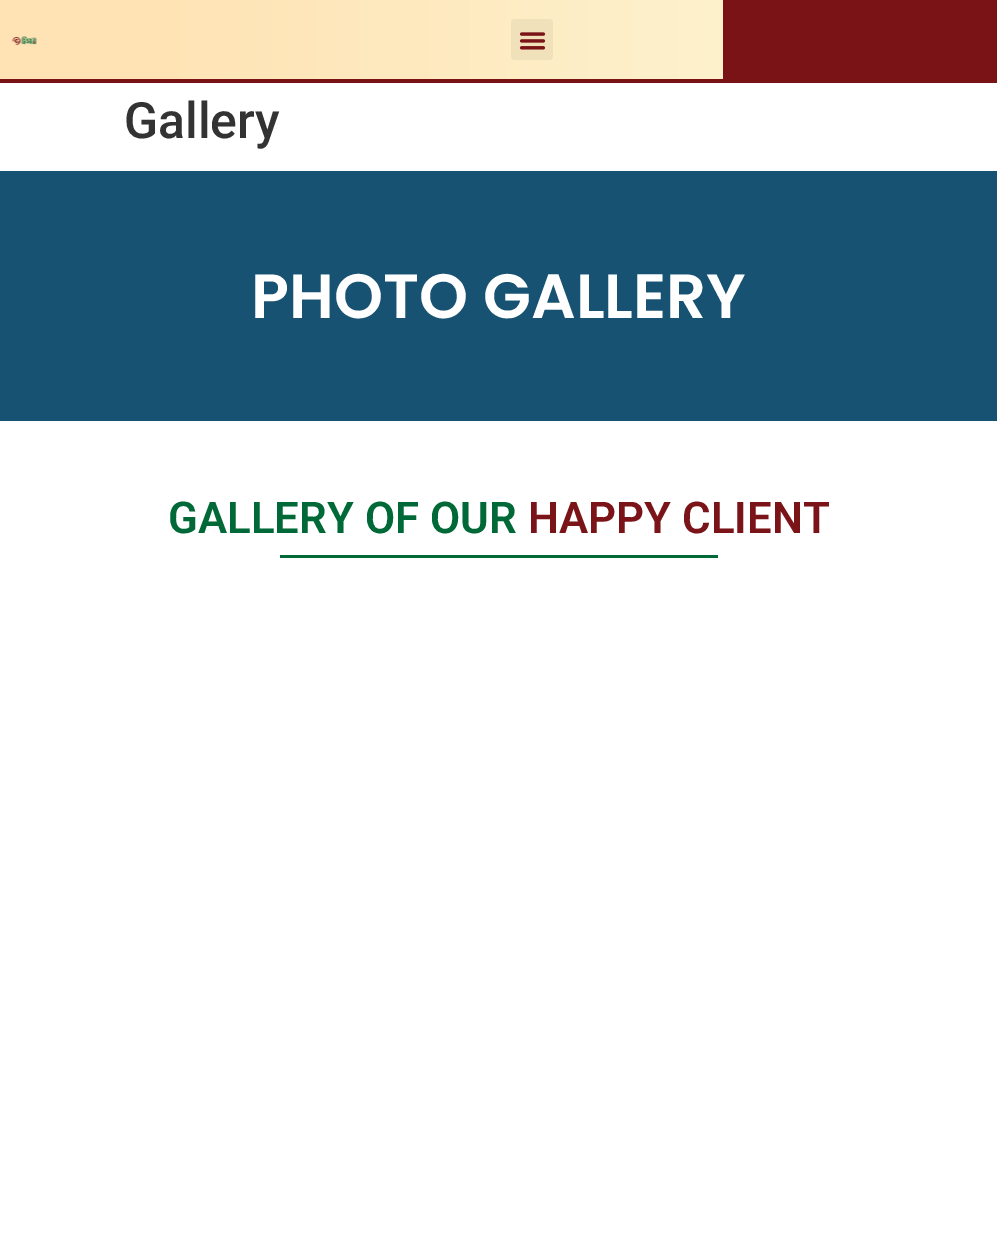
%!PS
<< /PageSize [997 1239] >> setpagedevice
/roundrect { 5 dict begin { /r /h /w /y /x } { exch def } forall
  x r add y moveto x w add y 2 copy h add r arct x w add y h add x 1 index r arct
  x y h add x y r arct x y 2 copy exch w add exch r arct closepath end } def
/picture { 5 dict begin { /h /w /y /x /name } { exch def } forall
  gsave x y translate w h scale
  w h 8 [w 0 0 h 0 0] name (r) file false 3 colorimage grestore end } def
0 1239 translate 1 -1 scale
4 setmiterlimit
1 setgray
0 0 997 1239 rectfill
0.478 0.075 0.086 setrgbcolor
723 0 274 79 rectfill
0 79 997 4 rectfill
gsave newpath 0 0 moveto 723 0 lineto 723 79 lineto 0 79 lineto closepath clip newpath
<< /ShadingType 2 /ColorSpace /DeviceRGB /Coords [0 39 723 39] /Extend [true true] /Function << /FunctionType 3 /Domain [0 1] /Functions [<< /FunctionType 2 /Domain [0 1] /C0 [1 0.89 0.706] /C1 [1 0.89 0.706] /N 1 >> << /FunctionType 2 /Domain [0 1] /C0 [1 0.89 0.706] /C1 [0.992 0.945 0.8] /N 1 >> << /FunctionType 2 /Domain [0 1] /C0 [0.992 0.945 0.8] /C1 [0.992 0.945 0.8] /N 1 >>] /Bounds [0.19 0.99] /Encode [0 1 0 1 0 1] >> >> shfill grestore
(img1.rgb) 12 36 25 9 picture
0.945 0.882 0.733 setrgbcolor
511 19 42 41 4 roundrect fill
(img2.rgb) 519 32 27 18 picture
/Roboto-Medium [50 0 0 -50 0 0] selectfont
0.2 setgray
124 138 moveto (Gallery) show
0.09 0.322 0.447 setrgbcolor
0 171 997 250 rectfill
/Poppins-SemiBold [62.5 0 0 -62.5 0 0] selectfont
1 setgray
251 318 moveto (PHOTO GALLERY) show
/Roboto-SemiBold [43.75 0 0 -43.75 0 0] selectfont
0.004 0.412 0.22 setrgbcolor
168 533 moveto (GALLERY OF OUR) show
0.482 0.078 0.094 setrgbcolor
528 533 moveto (HAPPY CLIENT) show
0.004 0.412 0.22 setrgbcolor
280 555 438 3 rectfill
showpage
